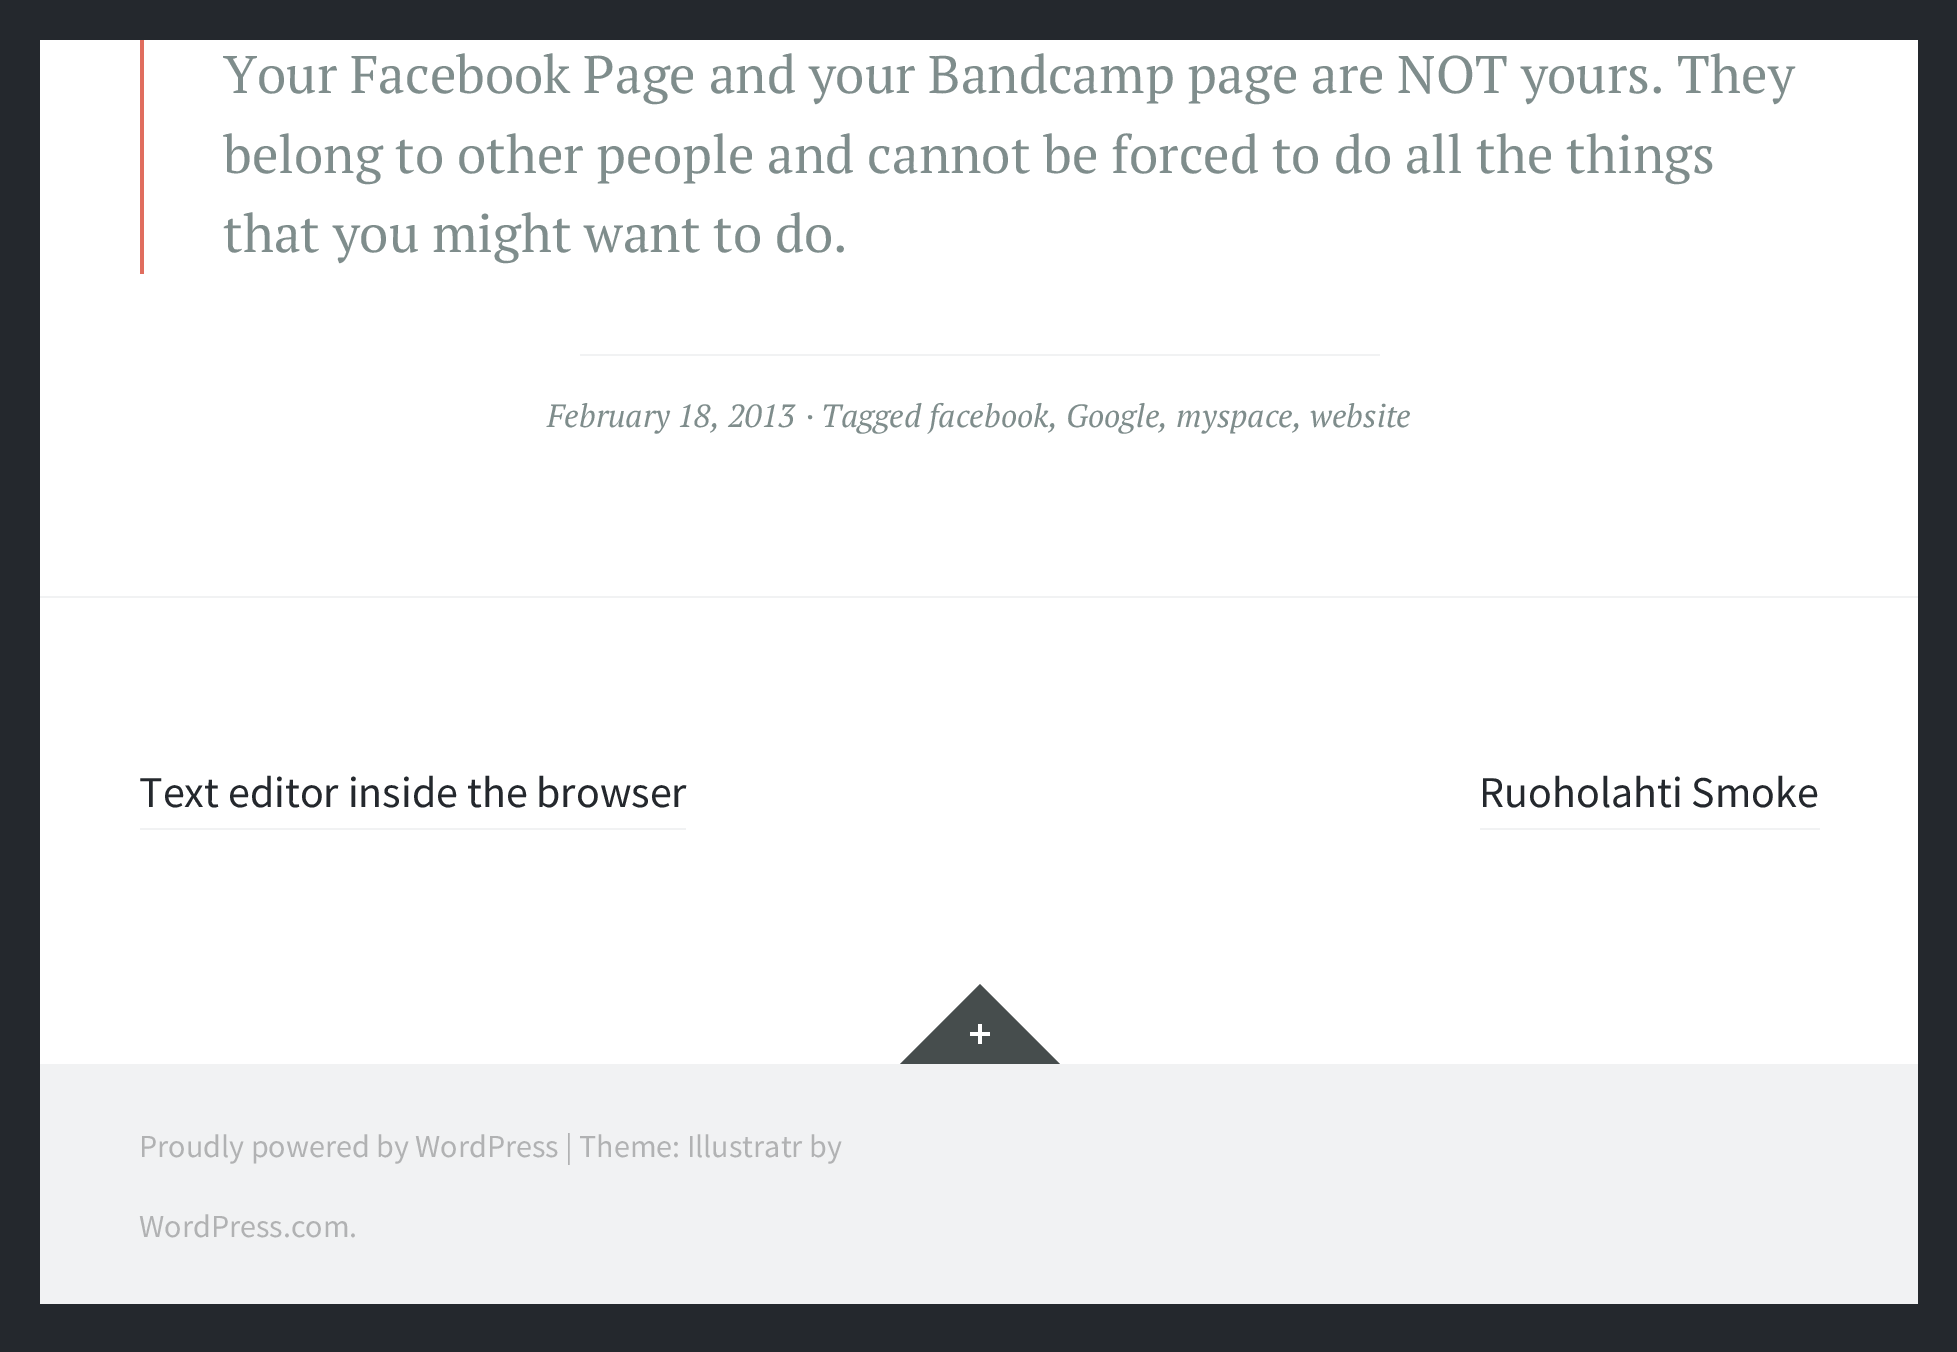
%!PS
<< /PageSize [1957 1352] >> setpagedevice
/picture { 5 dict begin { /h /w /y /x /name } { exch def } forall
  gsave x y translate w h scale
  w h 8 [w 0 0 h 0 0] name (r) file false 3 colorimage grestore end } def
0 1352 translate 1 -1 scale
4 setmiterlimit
0.141 0.157 0.176 setrgbcolor
0 0 1957 1352 rectfill
1 setgray
40 40 1878 1024 rectfill
0.878 0.427 0.369 setrgbcolor
140 40 4 234 rectfill
/PTSerif-Regular [52.8 0 0 -52.8 0 0] selectfont
0.498 0.553 0.549 setrgbcolor
223 93 moveto (Your Facebook Page and your Bandcamp page are NOT yours. They) show
223 173 moveto (belong to other people and cannot be forced to do all the things) show
223 252 moveto (that you might want to do.) show
0.945 0.949 0.953 setrgbcolor
580 354 800 2 rectfill
/PTSerif-Italic [32.1 0 0 -32.1 0 0] selectfont
0.498 0.553 0.549 setrgbcolor
547 427 moveto (February 18, 2013) show
806 427 moveto (· Tagged facebook, Google, myspace, website) show
0.945 0.949 0.953 setrgbcolor
40 596 1878 2 rectfill
/SourceSansPro-Regular [44 0 0 -44 0 0] selectfont
0.141 0.157 0.176 setrgbcolor
139 807 moveto (Text editor inside the browser) show
0.945 0.949 0.953 setrgbcolor
140 828 546 2 rectfill
0.141 0.157 0.176 setrgbcolor
1479 807 moveto (Ruoholahti Smoke) show
0.945 0.949 0.953 setrgbcolor
1480 828 340 2 rectfill
0.275 0.302 0.302 setrgbcolor
newpath 1060 1064 moveto 900 1064 lineto 980 984 lineto closepath fill
(img1.rgb) 970 1024 20 20 picture
0.945 0.949 0.953 setrgbcolor
40 1064 1878 240 rectfill
/SourceSansPro-Regular [32.1 0 0 -32.1 0 0] selectfont
0.694 0.698 0.702 setrgbcolor
139 1157 moveto (Proudly powered by WordPress) show
565 1157 moveto (| Theme: Illustratr by) show
139 1237 moveto (WordPress.com.) show
showpage
